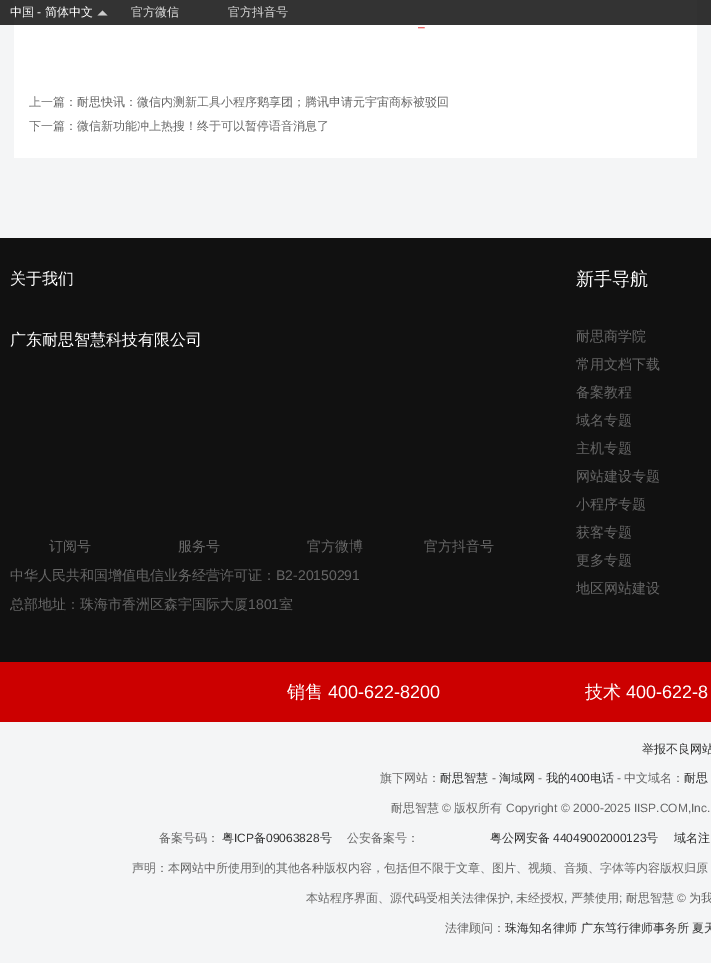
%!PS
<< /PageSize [711 963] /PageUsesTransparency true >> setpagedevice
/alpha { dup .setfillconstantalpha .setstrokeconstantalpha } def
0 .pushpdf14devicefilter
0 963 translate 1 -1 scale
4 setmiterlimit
0.957 0.961 0.965 setrgbcolor
0 0 711 963 rectfill
1 setgray
14 0 683 158 rectfill
0.8 alpha
0 setgray
0 0 711 25 rectfill
/WenQuanYiZenHei-Medium [12 0 0 -12 0 0] selectfont
1 alpha
1 setgray
10 16 moveto (中国) show
/LiberationSans-Regular [12 0 0 -12 0 0] selectfont
37 16 moveto (-) show
/WenQuanYiZenHei-Medium [12 0 0 -12 0 0] selectfont
45 16 moveto (简体中文) show
0.8 setgray
newpath 107.5 15.5 moveto 97.5 15.5 lineto 102.5 10.5 lineto closepath fill
0.867 setgray
131 16 moveto (官方微信) show
228 16 moveto (官方抖音号) show
/NotoSans-Regular [15 0 0 -15 0 0] selectfont
0.898 0.2 0.2 setrgbcolor
418 26 moveto (_) show
/WenQuanYiZenHei-Medium [12 0 0 -12 0 0] selectfont
0.4 setgray
29 106 moveto (上一篇：耐思快讯：微信内测新工具小程序鹅享团；腾讯申请元宇宙商标被驳回) show
29 130 moveto (下一篇：微信新功能冲上热搜！终于可以暂停语音消息了) show
0.067 setgray
0 238 711 424 rectfill
/WenQuanYiZenHei-Medium [16 0 0 -16 0 0] selectfont
1 setgray
10 284 moveto (关于我们) show
10 345 moveto (广东耐思智慧科技有限公司) show
/WenQuanYiZenHei-Medium [14 0 0 -14 0 0] selectfont
0.4 setgray
49 551 moveto (订阅号) show
178 551 moveto (服务号) show
307 551 moveto (官方微博) show
424 551 moveto (官方抖音号) show
10 580 moveto (中华人民共和国增值电信业务经营许可证：) show
/LiberationSans-Regular [14 0 0 -14 0 0] selectfont
276 580 moveto (B2-20150291) show
/WenQuanYiZenHei-Medium [14 0 0 -14 0 0] selectfont
10 609 moveto (总部地址：珠海市香洲区森宇国际大厦) show
/LiberationSans-Regular [14 0 0 -14 0 0] selectfont
248 609 moveto (1801) show
/WenQuanYiZenHei-Medium [14 0 0 -14 0 0] selectfont
279 609 moveto (室) show
/WenQuanYiZenHei-Medium [18 0 0 -18 0 0] selectfont
1 setgray
576 285 moveto (新手导航) show
/WenQuanYiZenHei-Medium [14 0 0 -14 0 0] selectfont
0.4 setgray
576 341 moveto (耐思商学院) show
576 369 moveto (常用文档下载) show
576 397 moveto (备案教程) show
576 425 moveto (域名专题) show
576 453 moveto (主机专题) show
576 481 moveto (网站建设专题) show
576 509 moveto (小程序专题) show
576 537 moveto (获客专题) show
576 565 moveto (更多专题) show
576 593 moveto (地区网站建设) show
0.8 0 0 setrgbcolor
0 662 711 60 rectfill
/WenQuanYiZenHei-Medium [18 0 0 -18 0 0] selectfont
1 setgray
287 698 moveto (销售) show
/LiberationSans-Regular [18 0 0 -18 0 0] selectfont
328 698 moveto (400-622-8200) show
/WenQuanYiZenHei-Medium [18 0 0 -18 0 0] selectfont
585 698 moveto (技术) show
/LiberationSans-Regular [18 0 0 -18 0 0] selectfont
626 698 moveto (400-622-8) show
/WenQuanYiZenHei-Medium [12 0 0 -12 0 0] selectfont
0.2 setgray
642 753 moveto (举报不良网站) show
0.4 setgray
380 782 moveto (旗下网站：) show
0.2 setgray
440 782 moveto (耐思智慧) show
/LiberationSans-Regular [12 0 0 -12 0 0] selectfont
0.4 setgray
492 782 moveto (-) show
/WenQuanYiZenHei-Medium [12 0 0 -12 0 0] selectfont
0.2 setgray
499 782 moveto (淘域网) show
/LiberationSans-Regular [12 0 0 -12 0 0] selectfont
0.4 setgray
538 782 moveto (-) show
/WenQuanYiZenHei-Medium [12 0 0 -12 0 0] selectfont
0.2 setgray
546 782 moveto (我的) show
/LiberationSans-Regular [12 0 0 -12 0 0] selectfont
570 782 moveto (400) show
/WenQuanYiZenHei-Medium [12 0 0 -12 0 0] selectfont
590 782 moveto (电话) show
/LiberationSans-Regular [12 0 0 -12 0 0] selectfont
0.4 setgray
617 782 moveto (-) show
/WenQuanYiZenHei-Medium [12 0 0 -12 0 0] selectfont
624 782 moveto (中文域名：) show
0.2 setgray
684 782 moveto (耐思) show
0.4 setgray
391 812 moveto (耐思智慧) show
/LiberationSans-Regular [12 0 0 -12 0 0] selectfont
442 812 moveto (©) show
/WenQuanYiZenHei-Medium [12 0 0 -12 0 0] selectfont
454 812 moveto (版权所有) show
/LiberationSans-Regular [12 0 0 -12 0 0] selectfont
506 812 moveto (Copyright © 2000-2025 IISP.COM,Inc.) show
/WenQuanYiZenHei-Medium [12 0 0 -12 0 0] selectfont
159 842 moveto (备案号码：) show
0.2 setgray
222 842 moveto (粤) show
/LiberationSans-Regular [12 0 0 -12 0 0] selectfont
234 842 moveto (ICP) show
/WenQuanYiZenHei-Medium [12 0 0 -12 0 0] selectfont
254 842 moveto (备) show
/LiberationSans-Regular [12 0 0 -12 0 0] selectfont
266 842 moveto (09063828) show
/WenQuanYiZenHei-Medium [12 0 0 -12 0 0] selectfont
320 842 moveto (号) show
0.4 setgray
347 842 moveto (公安备案号：) show
0.2 setgray
490 842 moveto (粤公网安备) show
/LiberationSans-Regular [12 0 0 -12 0 0] selectfont
553 842 moveto (44049002000123) show
/WenQuanYiZenHei-Medium [12 0 0 -12 0 0] selectfont
646 842 moveto (号) show
674 842 moveto (域名注) show
0.4 setgray
132 872 moveto (声明：本网站中所使用到的其他各种版权内容，包括但不限于文章、图片、视频、音频、字体等内容版权归原) show
306 902 moveto (本站程序界面、源代码受相关法律保护) show
/LiberationSans-Regular [12 0 0 -12 0 0] selectfont
510 902 moveto (,) show
/WenQuanYiZenHei-Medium [12 0 0 -12 0 0] selectfont
516 902 moveto (未经授权) show
/LiberationSans-Regular [12 0 0 -12 0 0] selectfont
564 902 moveto (,) show
/WenQuanYiZenHei-Medium [12 0 0 -12 0 0] selectfont
571 902 moveto (严禁使用) show
/LiberationSans-Regular [12 0 0 -12 0 0] selectfont
619 902 moveto (;) show
/WenQuanYiZenHei-Medium [12 0 0 -12 0 0] selectfont
626 902 moveto (耐思智慧) show
/LiberationSans-Regular [12 0 0 -12 0 0] selectfont
677 902 moveto (©) show
/WenQuanYiZenHei-Medium [12 0 0 -12 0 0] selectfont
689 902 moveto (为我) show
445 932 moveto (法律顾问：) show
0.2 setgray
505 932 moveto (珠海知名律师 广东笃行律师事务所 夏天) show
.poppdf14devicefilter showpage
